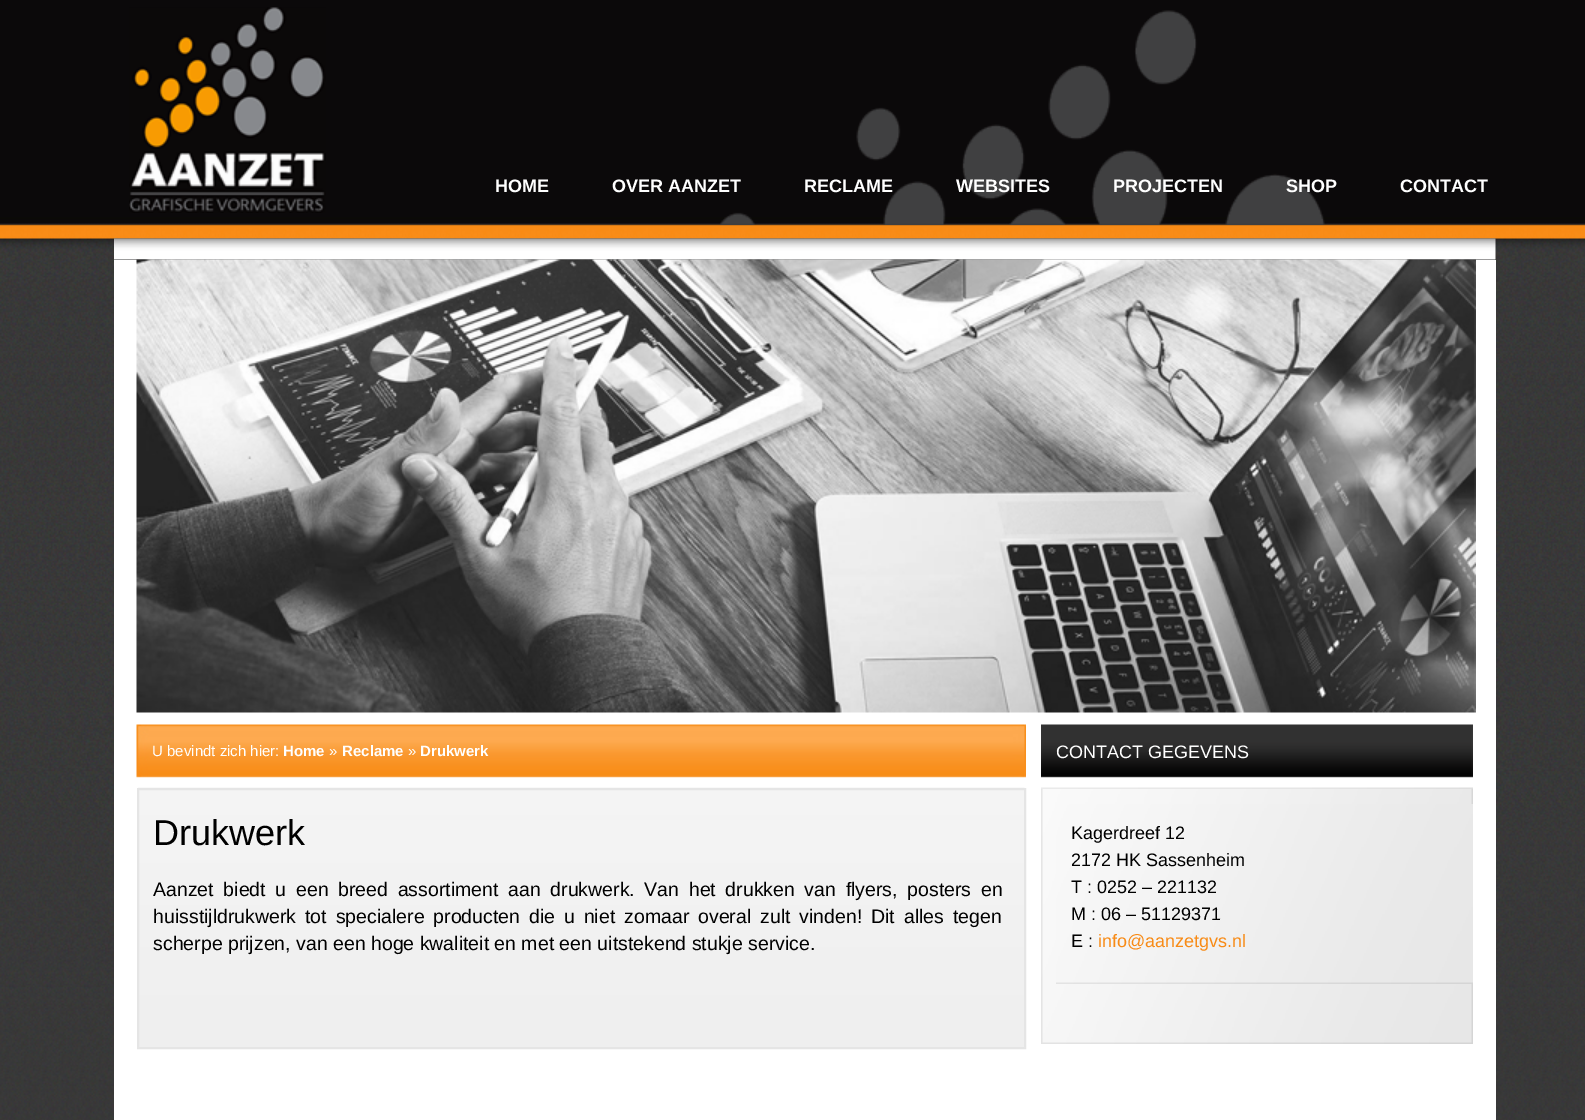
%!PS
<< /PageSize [1585 1120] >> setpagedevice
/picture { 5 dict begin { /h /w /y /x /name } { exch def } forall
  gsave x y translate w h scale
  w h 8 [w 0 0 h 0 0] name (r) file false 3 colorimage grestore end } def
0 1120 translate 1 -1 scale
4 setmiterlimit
1 setgray
0 0 1585 1120 rectfill
(img1.rgb) 0 0 1585 1120 picture
(img2.rgb) 720 10 605 215 picture
(img3.rgb) 129 7 197 206 picture
/LiberationSans-Bold [18 0 0 -18 0 0] selectfont
495 192 moveto (HOME) show
612 192 moveto (OVER AANZET) show
804 192 moveto (RECLAME) show
956 192 moveto (WEBSITES) show
1113 192 moveto (PROJECTEN) show
1286 192 moveto (SHOP) show
1400 192 moveto (CONTACT) show
(img4.rgb) 114 238 1382 22 picture
114 260 1382 860 rectfill
(img5.rgb) 136 259 1340 454 picture
(img6.rgb) 136 724 890 54 picture
/LiberationSans-Regular [15 0 0 -15 0 0] selectfont
152 756 moveto (U bevindt zich hier:) show
/LiberationSans-Bold [15 0 0 -15 0 0] selectfont
283 756 moveto (Home) show
/LiberationSans-Regular [15 0 0 -15 0 0] selectfont
329 756 moveto (») show
/LiberationSans-Bold [15 0 0 -15 0 0] selectfont
342 756 moveto (Reclame) show
/LiberationSans-Regular [15 0 0 -15 0 0] selectfont
408 756 moveto (») show
/LiberationSans-Bold [15 0 0 -15 0 0] selectfont
420 756 moveto (Drukwerk) show
(img7.rgb) 138 787 887 260 picture
0.898 setgray
2 setlinewidth
138 789 887 259 rectstroke
/LiberationSans-Regular [36 0 0 -36 0 0] selectfont
0 setgray
153 845 moveto (Drukwerk) show
/LiberationSans-Regular [19.5 0 0 -19.5 0 0] selectfont
153 896 moveto 4.25 0 32 (Aanzet biedt u een breed assortiment aan drukwerk. Van het drukken van flyers, posters en) widthshow
153 923 moveto 3.5 0 32 (huisstijldrukwerk tot specialere producten die u niet zomaar overal zult vinden! Dit alles tegen) widthshow
153 950 moveto (scherpe prijzen, van een hoge kwaliteit en met een uitstekend stukje service.) show
(img8.rgb) 1041 724 432 65 picture
/LiberationSans-Regular [18 0 0 -18 0 0] selectfont
1 setgray
1056 758 moveto (CONTACT GEGEVENS) show
(img9.rgb) 1041 789 432 255 picture
(img10.rgb) 1056 804 417 180 picture
0 setgray
1071 839 moveto (Kagerdreef 12) show
1071 866 moveto (2172 HK Sassenheim) show
1071 893 moveto (T : 0252 – 221132) show
1071 920 moveto (M : 06 – 51129371) show
1071 947 moveto (E :) show
0.973 0.545 0.086 setrgbcolor
1098 947 moveto (info@aanzetgvs.nl) show
showpage
